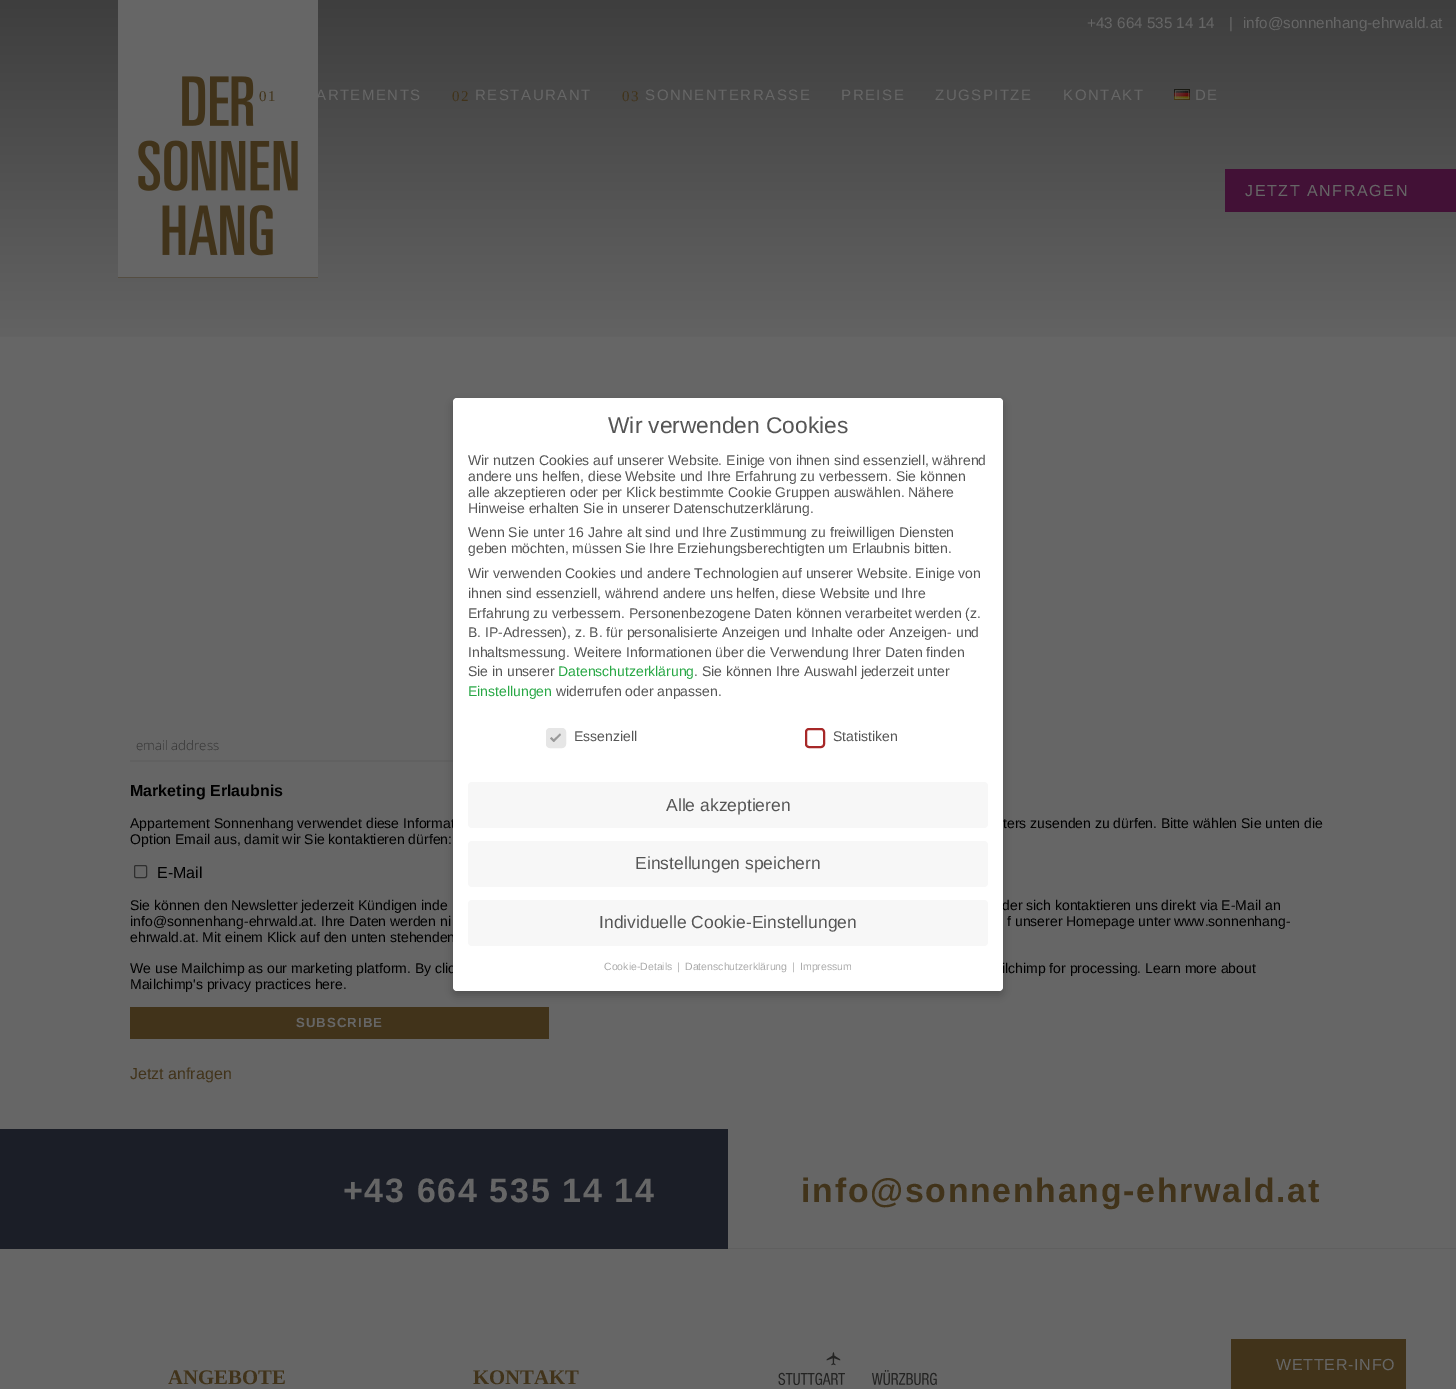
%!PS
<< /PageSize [1456 1389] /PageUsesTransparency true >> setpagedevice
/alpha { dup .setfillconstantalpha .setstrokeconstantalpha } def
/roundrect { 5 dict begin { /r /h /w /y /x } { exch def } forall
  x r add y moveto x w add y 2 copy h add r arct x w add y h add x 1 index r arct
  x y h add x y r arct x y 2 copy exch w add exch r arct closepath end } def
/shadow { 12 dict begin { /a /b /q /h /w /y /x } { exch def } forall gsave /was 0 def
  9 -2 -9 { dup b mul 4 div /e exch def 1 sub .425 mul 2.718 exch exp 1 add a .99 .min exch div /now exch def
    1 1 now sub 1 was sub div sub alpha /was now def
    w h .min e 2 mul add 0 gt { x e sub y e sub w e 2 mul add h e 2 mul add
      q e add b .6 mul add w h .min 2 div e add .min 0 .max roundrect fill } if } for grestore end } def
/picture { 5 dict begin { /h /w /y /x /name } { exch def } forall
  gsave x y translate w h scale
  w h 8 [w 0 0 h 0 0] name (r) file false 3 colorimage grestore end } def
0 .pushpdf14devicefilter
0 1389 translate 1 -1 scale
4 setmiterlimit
0.4 setgray
0 0 1456 1389 rectfill
gsave newpath 0 0 moveto 1456 0 lineto 1456 337 lineto 0 337 lineto closepath clip newpath
<< /ShadingType 2 /ColorSpace /DeviceRGB /Coords [728 0 728 360] /Extend [true true] /Function << /FunctionType 2 /Domain [0 1] /C0 [0.243 0.243 0.243] /C1 [0.4 0.4 0.4] /N 1 >> >> shfill grestore
gsave newpath 1225 169 moveto 1456 169 lineto 1456 212 lineto 1225 212 lineto closepath clip newpath
<< /ShadingType 2 /ColorSpace /DeviceRGB /Coords [728 0 728 360] /Extend [true true] /Function << /FunctionType 2 /Domain [0 1] /C0 [0.251 0.059 0.204] /C1 [0.267 0.075 0.22] /N 1 >> >> shfill grestore
/LiberationSans-Regular [15.25 0 0 -15.25 0 0] selectfont
1087 28 moveto (+43 664 535 14 14) show
1229 28 moveto (|) show
1243 28 moveto (info@sonnenhang-ehrwald.at) show
(img1.rgb) 118 0 200 278 picture
/LiberationSerif-Regular [15 0 0 -15 0 0] selectfont
0.255 0.2 0.102 setrgbcolor
259 101 moveto 1.5 0 (01) ashow
/LiberationSans-Regular [15 0 0 -15 0 0] selectfont
0.4 setgray
316 100 moveto 1.5 0 (ARTEMENTS) ashow
/LiberationSerif-Regular [15 0 0 -15 0 0] selectfont
0.255 0.2 0.102 setrgbcolor
452 101 moveto 1.5 0 (02) ashow
/LiberationSans-Regular [15 0 0 -15 0 0] selectfont
0.4 setgray
475 100 moveto 1.5 0 (RESTAURANT) ashow
/LiberationSerif-Regular [15 0 0 -15 0 0] selectfont
0.255 0.2 0.102 setrgbcolor
622 101 moveto 1.5 0 (03) ashow
/LiberationSans-Regular [15 0 0 -15 0 0] selectfont
0.4 setgray
645 100 moveto 1.5 0 (SONNENTERRASSE) ashow
841 100 moveto 1.5 0 (PREISE) ashow
935 100 moveto 1.5 0 (ZUGSPITZE) ashow
1063 100 moveto 1.5 0 (KONTAKT) ashow
(img2.rgb) 1174 89 16 11 picture
1195 100 moveto 1.5 0 (DE) ashow
/LiberationSans-Regular [16 0 0 -16 0 0] selectfont
1245 196 moveto 1.6 0 (JETZT ANFRAGEN) ashow
0.38 setgray
130 760 323 2 rectfill
/OpenSans-Light [13.25 0 0 -13.25 0 0] selectfont
0.2 setgray
136 750 moveto (email address) show
/LiberationSans-Bold [16 0 0 -16 0 0] selectfont
0 setgray
130 796 moveto (Marketing Erlaubnis) show
/LiberationSans-Regular [14 0 0 -14 0 0] selectfont
130 828 moveto (Appartement Sonnenhang verwendet diese Informat) show
1003 828 moveto (ters zusenden zu dürfen. Bitte wählen Sie unten die) show
130 844 moveto (Option Email aus, damit wir Sie kontaktieren dürfen:) show
0.184 setgray
134.5 865.5 12 12 1.5 roundrect stroke
/LiberationSans-Regular [16 0 0 -16 0 0] selectfont
0 setgray
157 878 moveto (E-Mail) show
/LiberationSans-Regular [14 0 0 -14 0 0] selectfont
130 910 moveto (Sie können den Newsletter jederzeit Kündigen inde) show
1002 910 moveto (der sich kontaktieren uns direkt via E-Mail an) show
130 926 moveto (info@sonnenhang-ehrwald.at. Ihre Daten werden ni) show
1007 926 moveto (f unserer Homepage unter www.sonnenhang-) show
130 942 moveto (ehrwald.at. Mit einem Klick auf den unten stehenden) show
130 973 moveto (We use Mailchimp as our marketing platform. By clic) show
1002 973 moveto (ilchimp for processing. Learn more about) show
130 989 moveto (Mailchimp's privacy practices here.) show
0.255 0.2 0.102 setrgbcolor
130 1007 419 32 rectfill
/LiberationSans-Bold [13.25 0 0 -13.25 0 0] selectfont
0.4 setgray
296 1027 moveto 1 0 (SUBSCRIBE) ashow
/LiberationSans-Regular [16 0 0 -16 0 0] selectfont
0.255 0.2 0.102 setrgbcolor
130 1079 moveto (Jetzt anfragen) show
0.106 0.118 0.153 setrgbcolor
0 1129 728 120 rectfill
/LiberationSans-Bold [33.9 0 0 -33.9 0 0] selectfont
0.4 setgray
343 1202 moveto 1.7 0 (+43 664 535 14 14) ashow
0.373 setgray
728 1248 728 1 rectfill
0.255 0.2 0.102 setrgbcolor
801 1202 moveto 1.7 0 (info@sonnenhang-ehrwald.at) ashow
/LiberationSerif-Bold [20.75 0 0 -20.75 0 0] selectfont
168 1384 moveto (ANGEBOTE) show
473 1384 moveto (KONTAKT) show
(img3.rgb) 778 1352 159 33 picture
0 setgray
453 402 550 593 4 4 0.2 shadow
1 setgray
453 398 550 593 4 roundrect fill
/LiberationSans-Regular [22.75 0 0 -22.75 0 0] selectfont
0.333 setgray
608 433 moveto (Wir verwenden Cookies) show
/LiberationSans-Regular [14 0 0 -14 0 0] selectfont
468 465 moveto (Wir nutzen Cookies auf unserer Website. Einige von ihnen sind essenziell, während) show
468 481 moveto (andere uns helfen, diese Website und Ihre Erfahrung zu verbessern. Sie können) show
468 497 moveto (alle akzeptieren oder per Klick bestimmte Cookie Gruppen auswählen. Nähere) show
468 513 moveto (Hinweise erhalten Sie in unserer Datenschutzerklärung.) show
468 537 moveto (Wenn Sie unter 16 Jahre alt sind und Ihre Zustimmung zu freiwilligen Diensten) show
468 553 moveto (geben möchten, müssen Sie Ihre Erziehungsberechtigten um Erlaubnis bitten.) show
468 578 moveto (Wir verwenden Cookies und andere Technologien auf unserer Website. Einige von) show
468 598 moveto (ihnen sind essenziell, während andere uns helfen, diese Website und Ihre) show
468 618 moveto (Erfahrung zu verbessern. Personenbezogene Daten können verarbeitet werden \(z.) show
468 637 moveto (B. IP-Adressen\), z. B. für personalisierte Anzeigen und Inhalte oder Anzeigen- und) show
468 657 moveto (Inhaltsmessung. Weitere Informationen über die Verwendung Ihrer Daten finden) show
468 676 moveto (Sie in unserer) show
0.157 0.655 0.271 setrgbcolor
558 676 moveto (Datenschutzerklärung) show
0.333 setgray
694 676 moveto (. Sie können Ihre Auswahl jederzeit unter) show
0.157 0.655 0.271 setrgbcolor
468 696 moveto (Einstellungen) show
0.333 setgray
556 696 moveto (widerrufen oder anpassen.) show
0.902 setgray
547 729 18 18 3 roundrect gsave fill grestore
2 setlinewidth
stroke
0.6 setgray
newpath 560 733.5 moveto 561 735 lineto 554 742 lineto 552.5 740.5 lineto closepath fill
newpath 551.5 737 moveto 555 740.5 lineto 553.5 742 lineto 550 738.5 lineto closepath fill
0.333 setgray
574 741 moveto (Essenziell) show
0.655 0.157 0.157 setrgbcolor
806 729 18 18 3 roundrect stroke
0.333 setgray
833 741 moveto (Statistiken) show
0.969 setgray
468 782 520 46 4 roundrect fill
/LiberationSans-Regular [17.5 0 0 -17.5 0 0] selectfont
0.333 setgray
666 811 moveto (Alle akzeptieren) show
0.969 setgray
468 841 520 46 4 roundrect fill
0.333 setgray
635 869 moveto (Einstellungen speichern) show
0.969 setgray
468 900 520 46 4 roundrect fill
0.333 setgray
599 928 moveto (Individuelle Cookie-Einstellungen) show
/LiberationSans-Regular [10.5 0 0 -10.5 0 0] selectfont
0.667 setgray
604 970 moveto (Cookie-Details) show
677 970 moveto (|) show
685 970 moveto (Datenschutzerklärung) show
792 970 moveto (|) show
800 970 moveto (Impressum) show
0.255 0.2 0.102 setrgbcolor
1231 1339 175 50 rectfill
/LiberationSans-Regular [16 0 0 -16 0 0] selectfont
0.4 setgray
1276 1370 moveto 0.75 0 (WETTER-INFO) ashow
.poppdf14devicefilter showpage
